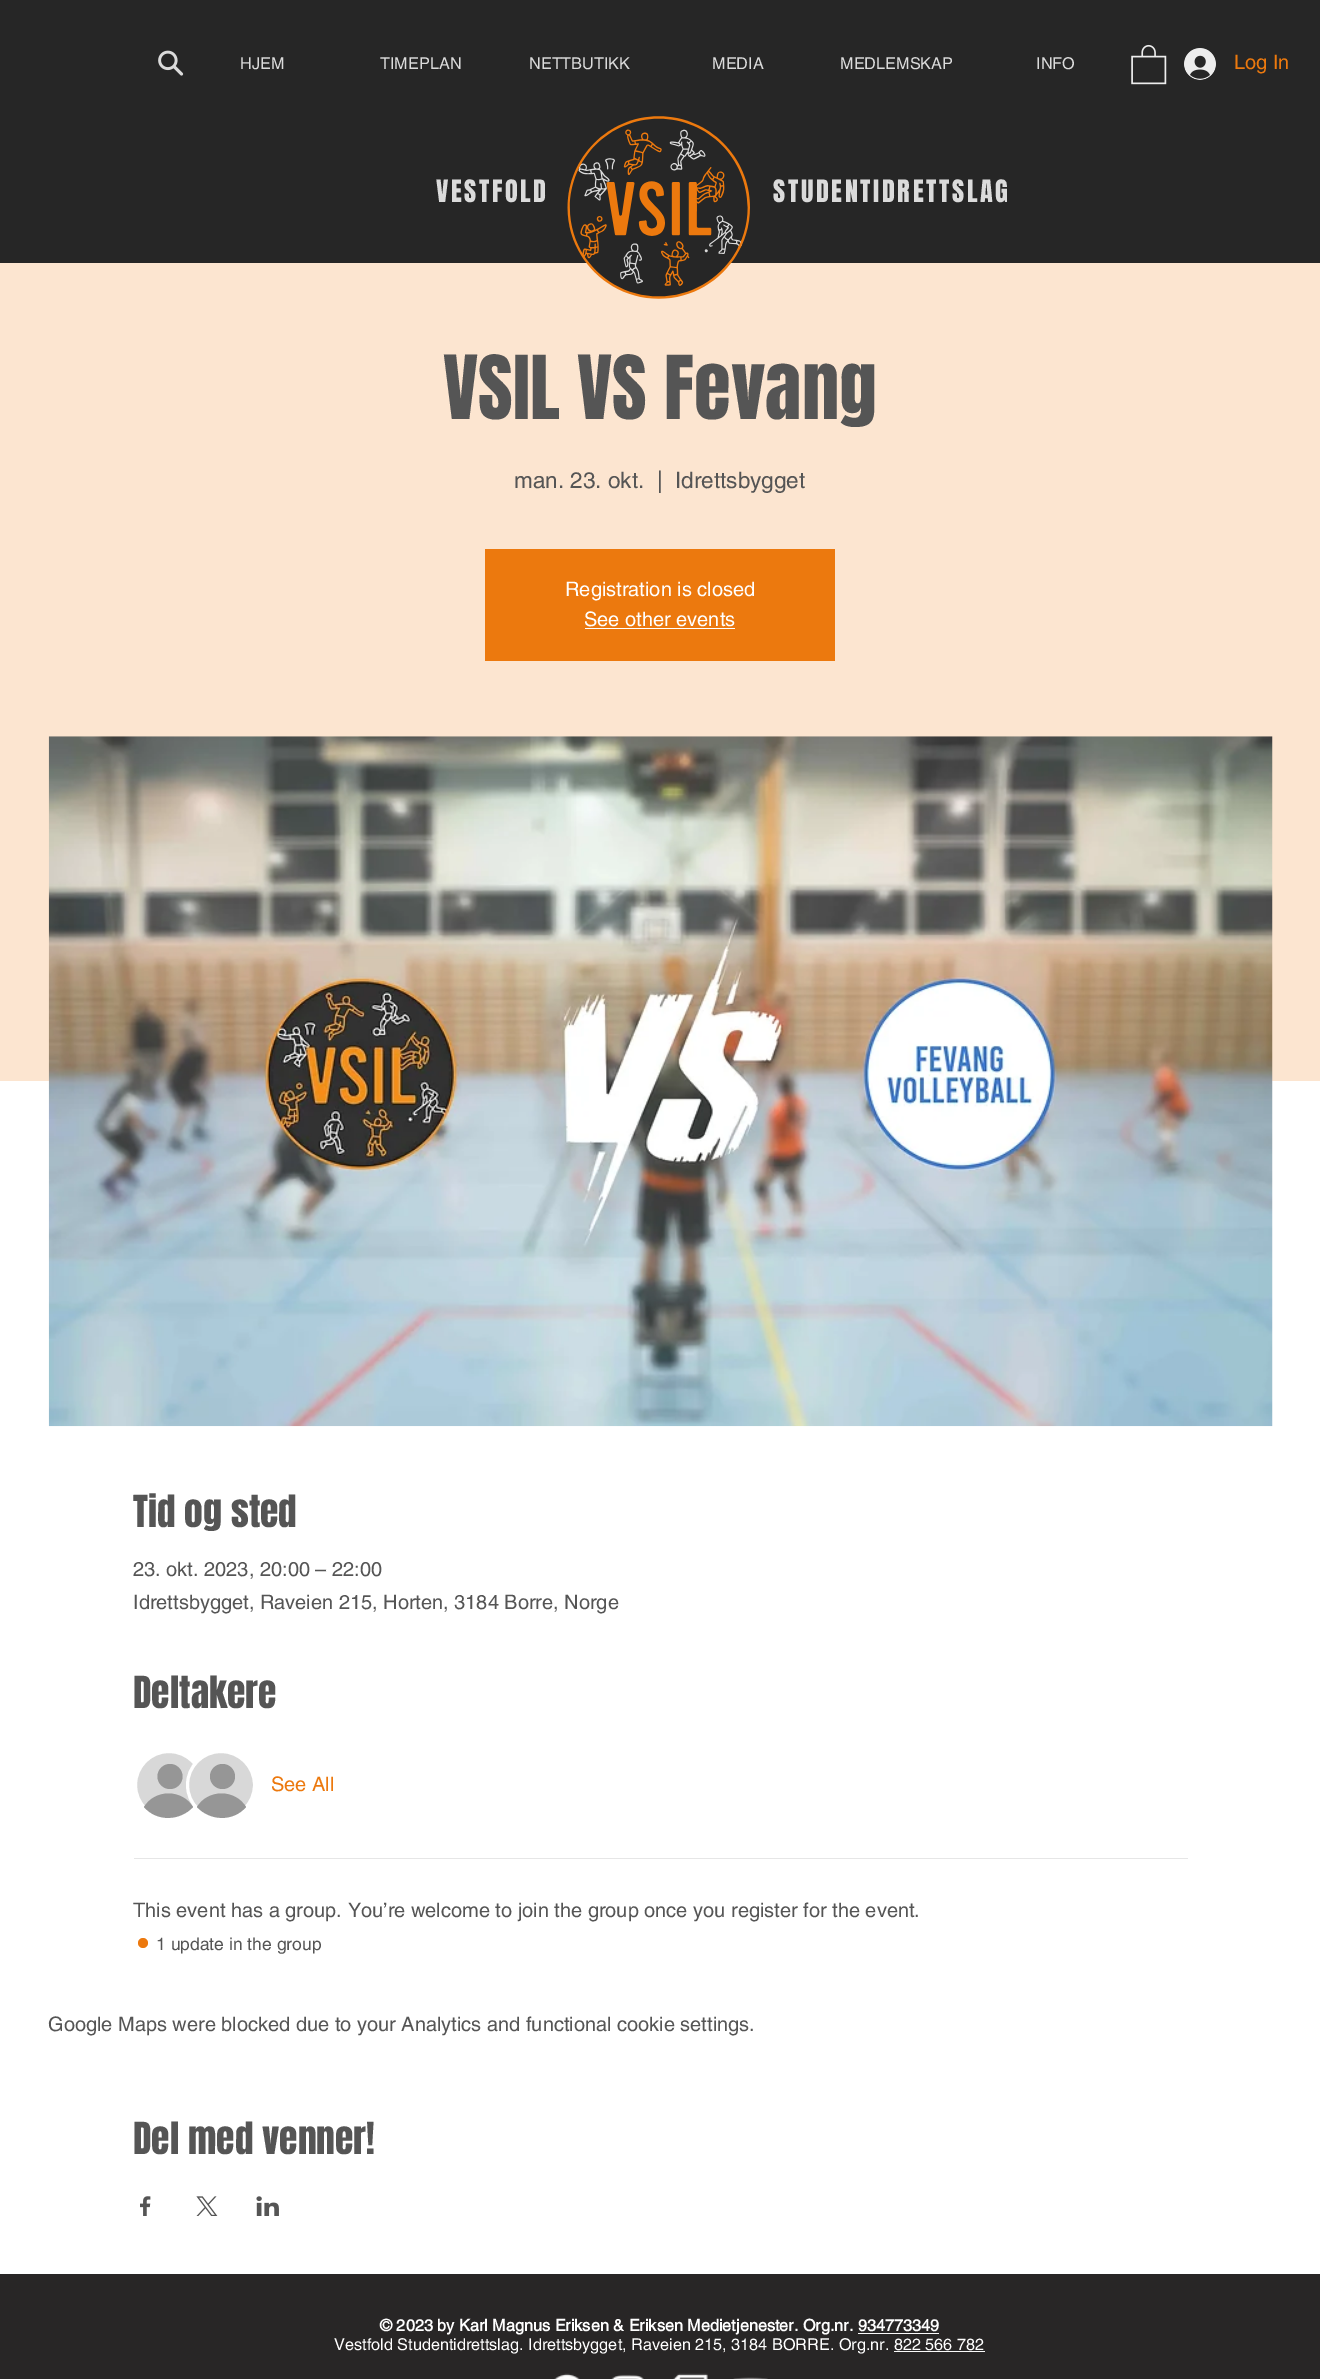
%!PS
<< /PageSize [1320 2379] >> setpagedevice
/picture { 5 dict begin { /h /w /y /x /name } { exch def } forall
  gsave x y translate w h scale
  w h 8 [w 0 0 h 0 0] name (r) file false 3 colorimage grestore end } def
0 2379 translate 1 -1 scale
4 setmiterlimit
1 setgray
0 0 1320 2379 rectfill
0.149 setgray
0 0 1320 263 rectfill
(img1.rgb) 158 50 26 26 picture
/helvetica-Regular [16.25 0 0 -16.25 0 0] selectfont
0.859 setgray
240 69 moveto (HJEM) show
380 69 moveto (TIMEPLAN) show
529 69 moveto (NETTBUTIKK) show
712 69 moveto (MEDIA) show
840 69 moveto (MEDLEMSKAP) show
1036 69 moveto (INFO) show
(img2.rgb) 1131 44 36 41 picture
(img3.rgb) 1184 48 32 32 picture
/helvetica-Regular [20 0 0 -20 0 0] selectfont
0.925 0.475 0.055 setrgbcolor
1234 69 moveto (Log In) show
/Anton-Regular [26.25 0 0 -26.25 0 0] selectfont
0.859 setgray
436 202 moveto 2.6 0 (VESTFOLD) ashow
0.988 0.898 0.816 setrgbcolor
0 263 1320 818 rectfill
(img4.rgb) 567 116 183 183 picture
0.859 setgray
773 202 moveto 2.6 0 (STUDENTIDRETTSLAG) ashow
/Anton-Regular [75 0 0 -75 0 0] selectfont
0.333 setgray
443 419 moveto (VSIL VS Fevang) show
/helvetica-Regular [22.5 0 0 -22.5 0 0] selectfont
514 488 moveto (man. 23. okt.) show
657 488 moveto (|) show
675 488 moveto (Idrettsbygget) show
0.925 0.475 0.055 setrgbcolor
485 549 350 112 rectfill
/helvetica-Regular [20 0 0 -20 0 0] selectfont
1 setgray
565 596 moveto (Registration is closed) show
584 626 moveto (See other events) show
585 628 150 1 rectfill
(img5.rgb) 48 736 1225 691 picture
/Anton-Regular [37.5 0 0 -37.5 0 0] selectfont
0.333 setgray
133 1527 moveto (Tid og sted) show
/helvetica-Regular [20 0 0 -20 0 0] selectfont
133 1576 moveto (23. okt. 2023, 20:00 – 22:00) show
133 1609 moveto (Idrettsbygget, Raveien 215, Horten, 3184 Borre, Norge) show
/Anton-Regular [37.5 0 0 -37.5 0 0] selectfont
133 1708 moveto (Deltakere) show
0.847 setgray
newpath 169 1785 33.5 0 360 arc closepath gsave fill grestore
1 setgray
3 setlinewidth
stroke
0.588 setgray
newpath 170 1776.5 12.5 0 360 arc closepath fill
newpath 193 1807 moveto 180 1821 157 1822 144 1807 curveto 155 1789 182 1789 193 1807 curveto closepath fill
0.847 setgray
newpath 221 1785 33.5 0 360 arc closepath gsave fill grestore
1 setgray
stroke
0.588 setgray
newpath 222.5 1776.5 12.5 0 360 arc closepath fill
newpath 246 1807 moveto 233 1822 210 1821 197 1807 curveto 208 1789 235 1789 246 1807 curveto closepath fill
/helvetica-Regular [20 0 0 -20 0 0] selectfont
0.925 0.475 0.055 setrgbcolor
271 1791 moveto (See All) show
0.902 setgray
134 1858 1054 1 rectfill
0.333 setgray
133 1917 moveto (This event has a group. You’re welcome to join the group once you register for the event.) show
0.925 0.475 0.055 setrgbcolor
newpath 143 1943 5 0 360 arc closepath fill
/helvetica-Regular [17.5 0 0 -17.5 0 0] selectfont
0.333 setgray
156 1950 moveto (1 update in the group) show
/helvetica-Regular [20 0 0 -20 0 0] selectfont
48 2031 moveto (Google Maps were blocked due to your Analytics and functional cookie settings.) show
/Anton-Regular [37.5 0 0 -37.5 0 0] selectfont
133 2154 moveto (Del med venner!) show
(img6.rgb) 140 2196 11 20 picture
(img7.rgb) 196 2196 22 20 picture
(img8.rgb) 256 2196 23 20 picture
0.157 0.149 0.149 setrgbcolor
0 2274 1320 105 rectfill
/helvetica-Bold [16.25 0 0 -16.25 0 0] selectfont
1 setgray
380 2331 moveto (© 2023 by Karl Magnus Eriksen & Eriksen Medietjenester. Org.nr. 934773349) show
0.98 setgray
858 2333 81 1 rectfill
/helvetica-Regular [16.25 0 0 -16.25 0 0] selectfont
1 setgray
334 2350 moveto (Vestfold Studentidrettslag. Idrettsbygget, Raveien 215, 3184 BORRE. Org.nr. 822 566 782) show
0.98 setgray
894 2351 91 1 rectfill
(img9.rgb) 554 2373 26 6 picture
(img10.rgb) 611 2374 33 5 picture
(img11.rgb) 673 2373 35 6 picture
(img12.rgb) 733 2377 35 2 picture
showpage
